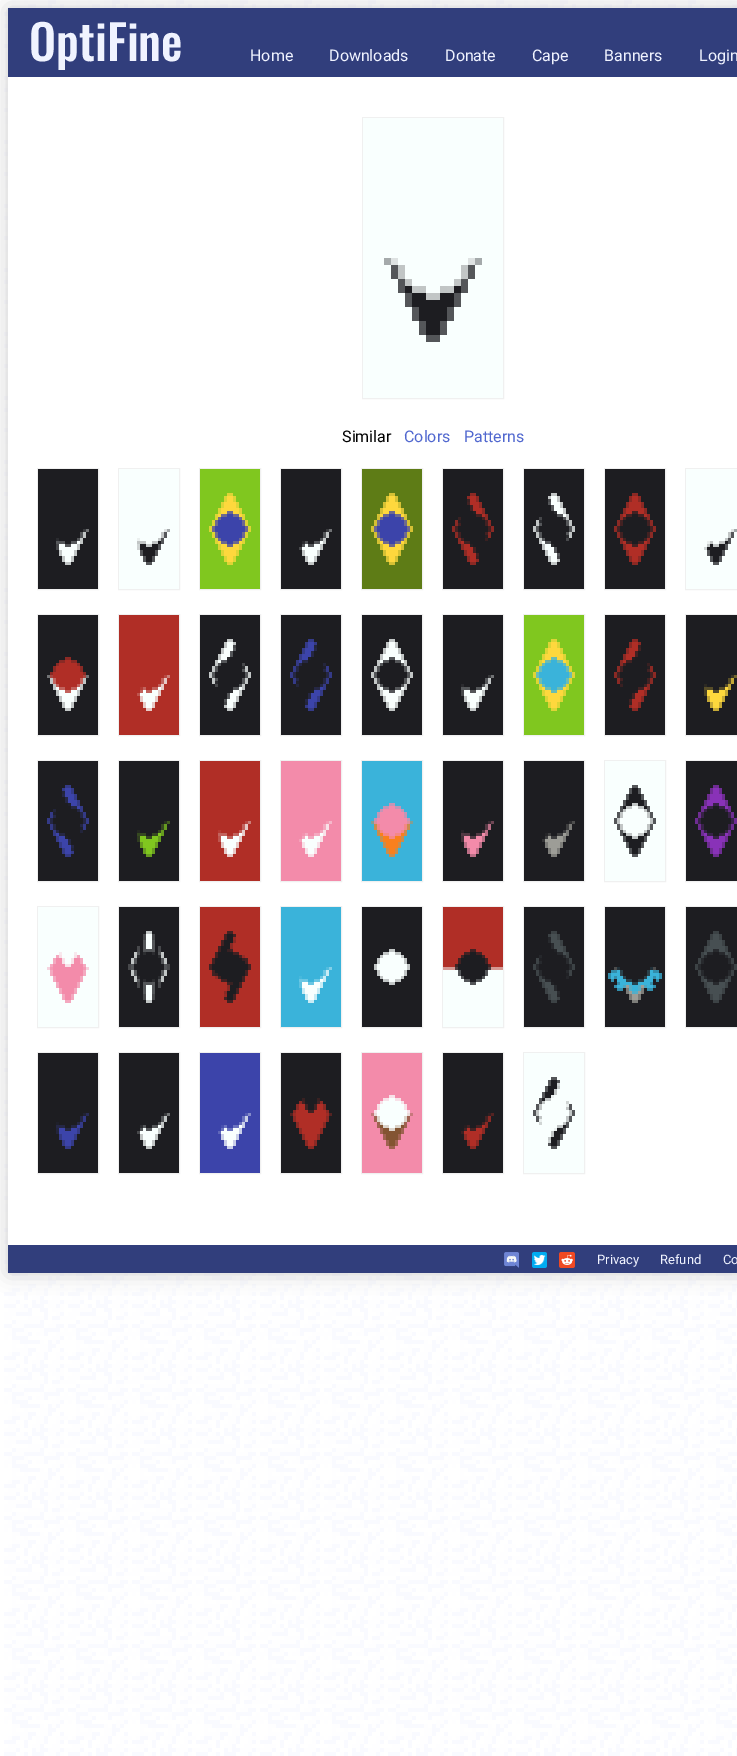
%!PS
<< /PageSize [737 1756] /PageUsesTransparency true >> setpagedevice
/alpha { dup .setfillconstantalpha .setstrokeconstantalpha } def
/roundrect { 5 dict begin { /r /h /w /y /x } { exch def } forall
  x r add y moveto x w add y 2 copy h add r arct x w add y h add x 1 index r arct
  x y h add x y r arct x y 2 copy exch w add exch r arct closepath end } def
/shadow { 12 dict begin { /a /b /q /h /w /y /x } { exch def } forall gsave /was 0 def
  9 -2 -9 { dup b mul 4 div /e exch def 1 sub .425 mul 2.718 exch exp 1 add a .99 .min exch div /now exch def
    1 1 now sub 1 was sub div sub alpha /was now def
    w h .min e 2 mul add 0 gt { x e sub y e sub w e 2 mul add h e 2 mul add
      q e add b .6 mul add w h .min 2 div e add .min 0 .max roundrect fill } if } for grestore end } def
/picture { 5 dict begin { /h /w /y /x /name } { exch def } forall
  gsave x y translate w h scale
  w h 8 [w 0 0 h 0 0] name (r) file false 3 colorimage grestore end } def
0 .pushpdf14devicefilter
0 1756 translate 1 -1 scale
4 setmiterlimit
1 setgray
0 0 737 1756 rectfill
(img1.rgb) 4 0 733 1756 picture
0.8 setgray
8 8 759 1265 0 10 1 shadow
1 setgray
8 77 729 1168 rectfill
0.192 0.243 0.486 setrgbcolor
8 8 729 69 rectfill
/Oswald-Medium [48 0 0 -48 0 0] selectfont
0.941 0.953 1 setrgbcolor
29 61 moveto (OptiFine) show
/Roboto-Regular [16 0 0 -16 0 0] selectfont
250 61 moveto (Home) show
329 61 moveto (Downloads) show
445 61 moveto (Donate) show
532 61 moveto (Cape) show
604 61 moveto (Banners) show
699 61 moveto (Login) show
0.941 setgray
362.5 117.5 141 281 rectstroke
(img2.rgb) 363 118 140 280 picture
0 setgray
342 442 moveto (Similar) show
0.318 0.408 0.812 setrgbcolor
404 442 moveto (Colors) show
464 442 moveto (Patterns) show
0.941 setgray
37.5 468.5 61 121 rectstroke
(img3.rgb) 38 469 60 120 picture
118.5 468.5 61 121 rectstroke
(img4.rgb) 119 469 60 120 picture
199.5 468.5 61 121 rectstroke
(img5.rgb) 200 469 60 120 picture
280.5 468.5 61 121 rectstroke
(img6.rgb) 281 469 60 120 picture
361.5 468.5 61 121 rectstroke
(img7.rgb) 362 469 60 120 picture
442.5 468.5 61 121 rectstroke
(img8.rgb) 443 469 60 120 picture
523.5 468.5 61 121 rectstroke
(img9.rgb) 524 469 60 120 picture
604.5 468.5 61 121 rectstroke
(img10.rgb) 605 469 60 120 picture
685.5 468.5 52 121 rectstroke
(img11.rgb) 686 469 51 120 picture
37.5 614.5 61 121 rectstroke
(img12.rgb) 38 615 60 120 picture
118.5 614.5 61 121 rectstroke
(img13.rgb) 119 615 60 120 picture
199.5 614.5 61 121 rectstroke
(img14.rgb) 200 615 60 120 picture
280.5 614.5 61 121 rectstroke
(img15.rgb) 281 615 60 120 picture
361.5 614.5 61 121 rectstroke
(img16.rgb) 362 615 60 120 picture
442.5 614.5 61 121 rectstroke
(img17.rgb) 443 615 60 120 picture
523.5 614.5 61 121 rectstroke
(img18.rgb) 524 615 60 120 picture
604.5 614.5 61 121 rectstroke
(img19.rgb) 605 615 60 120 picture
685.5 614.5 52 121 rectstroke
(img20.rgb) 686 615 51 120 picture
37.5 760.5 61 121 rectstroke
(img21.rgb) 38 761 60 120 picture
118.5 760.5 61 121 rectstroke
(img22.rgb) 119 761 60 120 picture
199.5 760.5 61 121 rectstroke
(img23.rgb) 200 761 60 120 picture
280.5 760.5 61 121 rectstroke
(img24.rgb) 281 761 60 120 picture
361.5 760.5 61 121 rectstroke
(img25.rgb) 362 761 60 120 picture
442.5 760.5 61 121 rectstroke
(img26.rgb) 443 761 60 120 picture
523.5 760.5 61 121 rectstroke
(img27.rgb) 524 761 60 120 picture
604.5 760.5 61 121 rectstroke
(img28.rgb) 605 761 60 120 picture
685.5 760.5 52 121 rectstroke
(img29.rgb) 686 761 51 120 picture
37.5 906.5 61 121 rectstroke
(img30.rgb) 38 907 60 120 picture
118.5 906.5 61 121 rectstroke
(img31.rgb) 119 907 60 120 picture
199.5 906.5 61 121 rectstroke
(img32.rgb) 200 907 60 120 picture
280.5 906.5 61 121 rectstroke
(img33.rgb) 281 907 60 120 picture
361.5 906.5 61 121 rectstroke
(img34.rgb) 362 907 60 120 picture
442.5 906.5 61 121 rectstroke
(img35.rgb) 443 907 60 120 picture
523.5 906.5 61 121 rectstroke
(img36.rgb) 524 907 60 120 picture
604.5 906.5 61 121 rectstroke
(img37.rgb) 605 907 60 120 picture
685.5 906.5 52 121 rectstroke
(img38.rgb) 686 907 51 120 picture
37.5 1052.5 61 121 rectstroke
(img39.rgb) 38 1053 60 120 picture
118.5 1052.5 61 121 rectstroke
(img40.rgb) 119 1053 60 120 picture
199.5 1052.5 61 121 rectstroke
(img41.rgb) 200 1053 60 120 picture
280.5 1052.5 61 121 rectstroke
(img42.rgb) 281 1053 60 120 picture
361.5 1052.5 61 121 rectstroke
(img43.rgb) 362 1053 60 120 picture
442.5 1052.5 61 121 rectstroke
(img44.rgb) 443 1053 60 120 picture
523.5 1052.5 61 121 rectstroke
(img45.rgb) 524 1053 60 120 picture
0.192 0.243 0.486 setrgbcolor
8 1245 729 28 rectfill
(img46.rgb) 504 1252 15 16 picture
(img47.rgb) 532 1252 15 16 picture
(img48.rgb) 559 1252 16 16 picture
/Roboto-Regular [13 0 0 -13 0 0] selectfont
0.941 0.953 1 setrgbcolor
597 1264 moveto (Privacy) show
660 1264 moveto (Refund) show
723 1264 moveto (Co) show
.poppdf14devicefilter showpage
